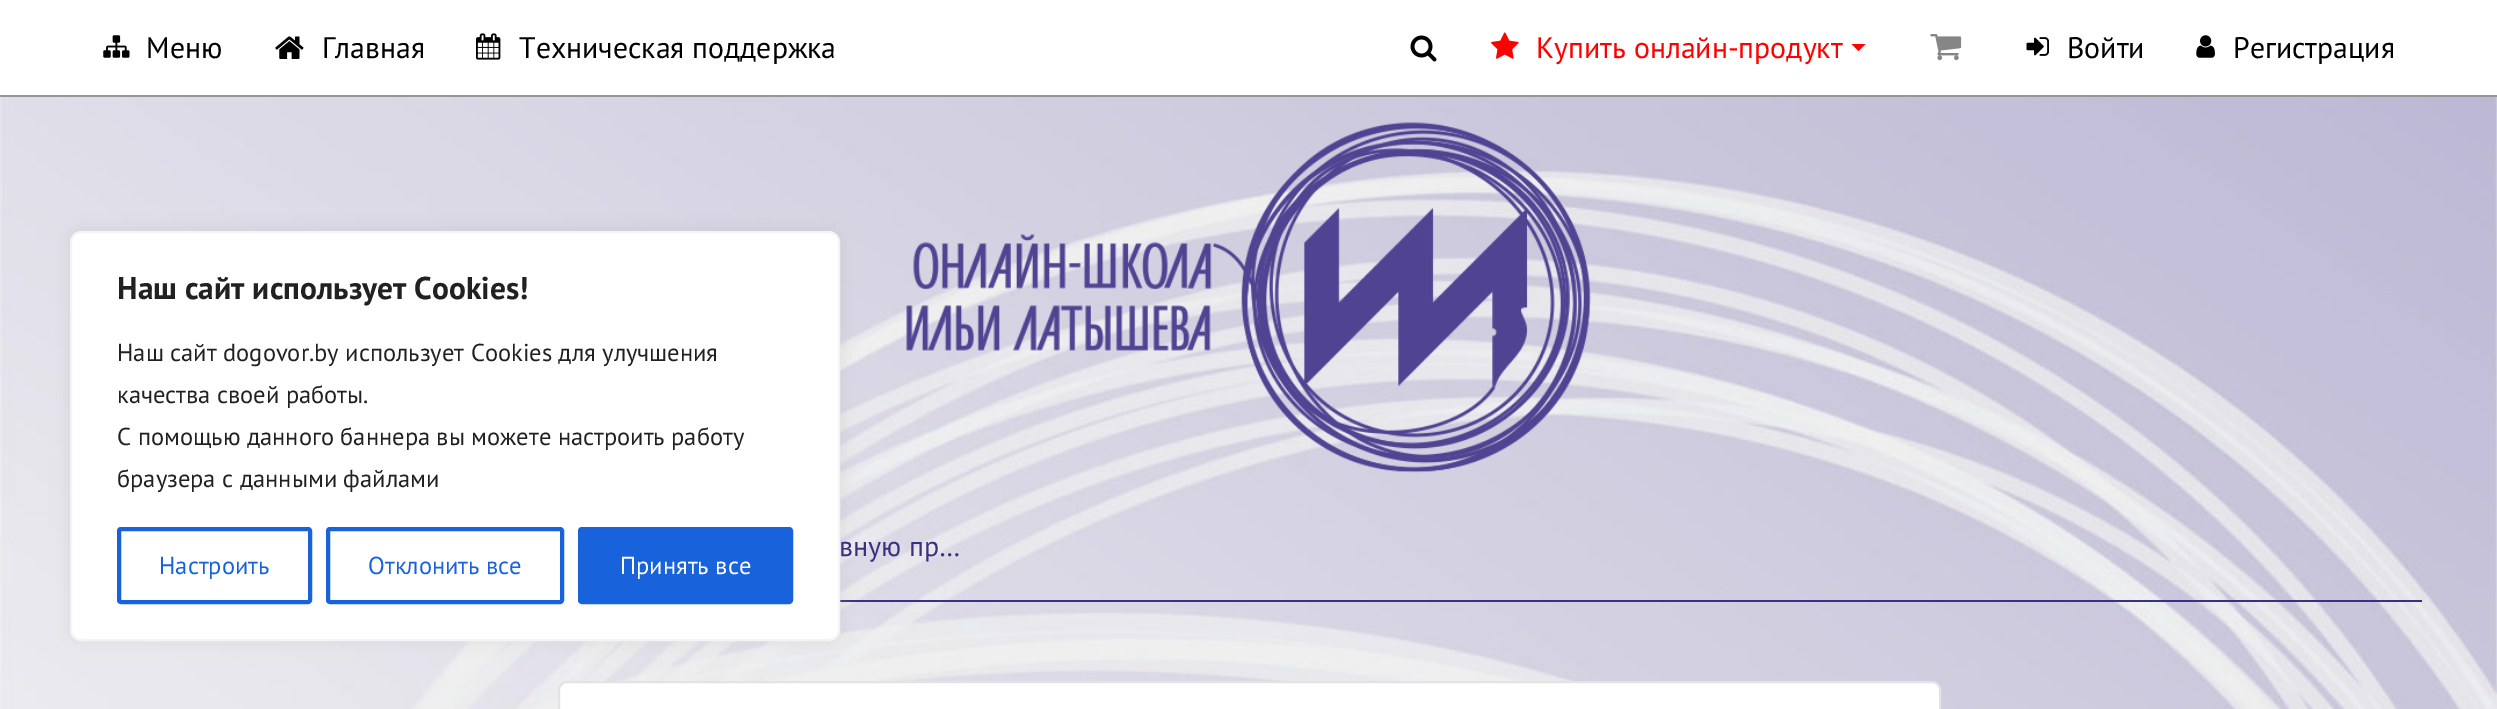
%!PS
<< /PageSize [2497 709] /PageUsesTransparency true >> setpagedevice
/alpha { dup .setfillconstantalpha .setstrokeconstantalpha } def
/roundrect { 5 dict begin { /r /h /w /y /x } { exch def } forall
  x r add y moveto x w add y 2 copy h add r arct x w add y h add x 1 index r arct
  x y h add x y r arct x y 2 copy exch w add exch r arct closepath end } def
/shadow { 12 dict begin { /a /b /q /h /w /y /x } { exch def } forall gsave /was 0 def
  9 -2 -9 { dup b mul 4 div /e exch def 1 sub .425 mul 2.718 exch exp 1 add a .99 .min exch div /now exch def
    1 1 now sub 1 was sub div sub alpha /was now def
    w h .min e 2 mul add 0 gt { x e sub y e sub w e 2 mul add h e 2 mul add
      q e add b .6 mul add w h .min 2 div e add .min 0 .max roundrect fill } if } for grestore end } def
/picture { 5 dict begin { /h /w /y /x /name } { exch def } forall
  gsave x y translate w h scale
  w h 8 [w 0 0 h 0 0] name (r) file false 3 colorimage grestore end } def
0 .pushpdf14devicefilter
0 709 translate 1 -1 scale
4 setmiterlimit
1 setgray
0 0 2497 709 rectfill
(img1.rgb) 0 97 2497 612 picture
0.588 setgray
0 95 2497 2 rectfill
(img2.rgb) 103 35 27 23 picture
/PTSans-Regular [29.75 0 0 -29.75 0 0] selectfont
0 setgray
146 58 moveto (Меню) show
(img3.rgb) 275 36 29 23 picture
322 58 moveto (Главная) show
(img4.rgb) 476 33 25 27 picture
519 58 moveto (Техническая поддержка) show
(img5.rgb) 1410 35 27 27 picture
(img6.rgb) 1491 32 28 27 picture
1 0 0 setrgbcolor
1536 58 moveto (Купить онлайн-продукт) show
newpath 1851.5 44 moveto 1865.5 44 lineto 1858.5 51 lineto closepath fill
(img7.rgb) 1930 34 32 27 picture
(img8.rgb) 2026 37 23 19 picture
0 setgray
2067 58 moveto (Войти) show
(img9.rgb) 2196 35 19 23 picture
2233 58 moveto (Регистрация) show
0.224 0.192 0.522 setrgbcolor
840 600 1582 2 rectfill
0.675 0.671 0.671 setrgbcolor
70 229 770 410 11 9 0.3 shadow
1 setgray
71 232 768 408 10 roundrect gsave fill grestore
0.957 setgray
2 setlinewidth
stroke
/PTSans-Bold [31.5 0 0 -31.5 0 0] selectfont
0.129 setgray
117 299 moveto (Наш сайт использует Cookies!) show
/PTSans-Regular [24.5 0 0 -24.5 0 0] selectfont
117 361 moveto (Наш сайт dogovor.by использует Cookies для улучшения) show
117 403 moveto (качества своей работы.) show
117 445 moveto (С помощью данного баннера вы можете настроить работу) show
117 487 moveto (браузера с данными файлами) show
0.094 0.388 0.863 setrgbcolor
4 setlinewidth
119 529 191 73 2 roundrect stroke
159 574 moveto (Настроить) show
328 529 234 73 2 roundrect stroke
368 574 moveto (Отклонить все) show
580 529 211 73 2 roundrect gsave fill grestore
stroke
1 setgray
620 574 moveto (Принять все) show
(img10.rgb) 906 122 685 351 picture
/PTSans-Regular [28 0 0 -28 0 0] selectfont
0.224 0.192 0.502 setrgbcolor
839 556 moveto (вную пр…) show
1 setgray
559 682 1381 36 8 roundrect gsave fill grestore
0.89 setgray
2 setlinewidth
stroke
.poppdf14devicefilter showpage
